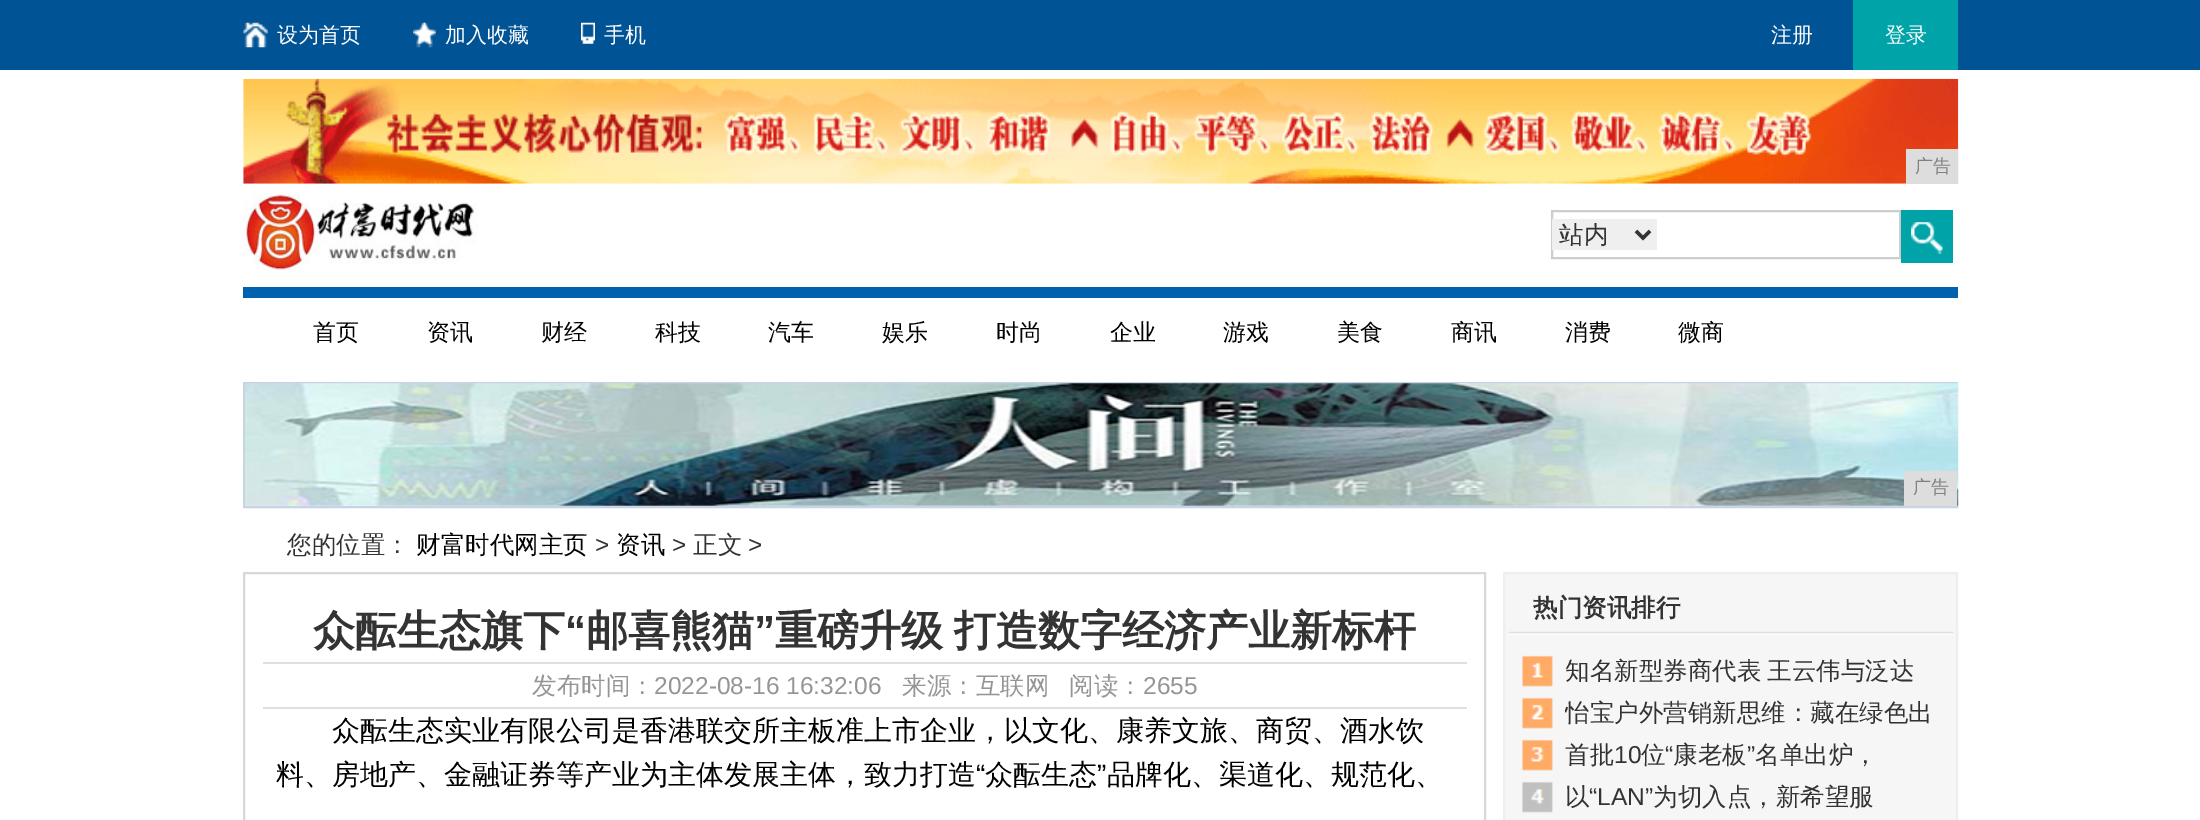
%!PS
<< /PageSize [2200 820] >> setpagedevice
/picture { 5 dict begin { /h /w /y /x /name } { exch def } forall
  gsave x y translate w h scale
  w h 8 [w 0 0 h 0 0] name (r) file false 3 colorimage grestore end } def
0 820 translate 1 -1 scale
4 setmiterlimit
1 setgray
0 0 2200 820 rectfill
0 0.325 0.58 setrgbcolor
0 0 2200 70 rectfill
(img1.rgb) 243 22 25 26 picture
/WenQuanYiZenHei-Medium [21 0 0 -21 0 0] selectfont
1 setgray
277 42 moveto (设为首页) show
(img2.rgb) 413 22 23 26 picture
445 42 moveto (加入收藏) show
(img3.rgb) 581 22 14 22 picture
604 42 moveto (手机) show
1771 42 moveto (注册) show
0 0.643 0.659 setrgbcolor
1853 0 105 70 rectfill
1 setgray
1885 42 moveto (登录) show
(img4.rgb) 243 78 1716 106 picture
0.867 setgray
1906 149 52 35 rectfill
/WenQuanYiZenHei-Medium [18 0 0 -18 0 0] selectfont
0.502 setgray
1915 172 moveto (广告) show
0 0.384 0.682 setrgbcolor
243 287 1715 11 rectfill
(img5.rgb) 243 192 235 78 picture
0.804 setgray
2 setlinewidth
1552 211 348 47 rectstroke
0.937 setgray
1552 219 105 31 rectfill
0.2 setgray
3.5 setlinewidth
newpath 1636 231 moveto 1643 238 lineto 1650 231 lineto stroke
/WenQuanYiZenHei-Medium [24.5 0 0 -24.5 0 0] selectfont
1559 243 moveto (站内) show
0 0.643 0.659 setrgbcolor
1901 210 52 53 rectfill
(img6.rgb) 1911 222 32 32 picture
/WenQuanYiZenHei-Medium [23 0 0 -23 0 0] selectfont
0 setgray
313 340 moveto (首页) show
427 340 moveto (资讯) show
541 340 moveto (财经) show
655 340 moveto (科技) show
768 340 moveto (汽车) show
882 340 moveto (娱乐) show
996 340 moveto (时尚) show
1110 340 moveto (企业) show
1223 340 moveto (游戏) show
1337 340 moveto (美食) show
1451 340 moveto (商讯) show
1565 340 moveto (消费) show
1678 340 moveto (微商) show
0.776 0.831 0.898 setrgbcolor
2 setlinewidth
244 383 1713 124 rectstroke
(img7.rgb) 245 383 1714 123 picture
0.867 setgray
1904 471 53 35 rectfill
/WenQuanYiZenHei-Medium [18 0 0 -18 0 0] selectfont
0.502 setgray
1913 493 moveto (广告) show
/WenQuanYiZenHei-Medium [24.5 0 0 -24.5 0 0] selectfont
0.2 setgray
287 553 moveto (您的位置：) show
0 setgray
416 553 moveto (财富时代网主页) show
/LiberationSans-Regular [24.5 0 0 -24.5 0 0] selectfont
0.2 setgray
595 553 moveto (>) show
/WenQuanYiZenHei-Medium [24.5 0 0 -24.5 0 0] selectfont
0 setgray
616 553 moveto (资讯) show
/LiberationSans-Regular [24.5 0 0 -24.5 0 0] selectfont
0.2 setgray
672 553 moveto (>) show
/WenQuanYiZenHei-Medium [24.5 0 0 -24.5 0 0] selectfont
693 553 moveto (正文) show
/LiberationSans-Regular [24.5 0 0 -24.5 0 0] selectfont
748 553 moveto (>) show
0.847 setgray
244 573 1241 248 rectstroke
/WenQuanYiZenHei-Bold [42 0 0 -42 0 0] selectfont
0.2 setgray
313 645 moveto (众酝生态旗下) show
/LiberationSans-Bold [42 0 0 -42 0 0] selectfont
565 645 moveto (“) show
/WenQuanYiZenHei-Bold [42 0 0 -42 0 0] selectfont
586 645 moveto (邮喜熊猫) show
/LiberationSans-Bold [42 0 0 -42 0 0] selectfont
754 645 moveto (”) show
/WenQuanYiZenHei-Bold [42 0 0 -42 0 0] selectfont
775 645 moveto (重磅升级) show
954 645 moveto (打造数字经济产业新标杆) show
0.875 setgray
263 662 1204 2 rectfill
263 707 1204 2 rectfill
/WenQuanYiZenHei-Medium [24.5 0 0 -24.5 0 0] selectfont
0.584 setgray
532 694 moveto (发布时间：) show
/LiberationSans-Regular [24.5 0 0 -24.5 0 0] selectfont
654 694 moveto (2022-08-16 16:32:06) show
/WenQuanYiZenHei-Medium [24.5 0 0 -24.5 0 0] selectfont
902 694 moveto (来源：互联网) show
1069 694 moveto (阅读：) show
/LiberationSans-Regular [24.5 0 0 -24.5 0 0] selectfont
1143 694 moveto (2655) show
/WenQuanYiZenHei-Medium [28 0 0 -28 0 0] selectfont
0 setgray
332 740 moveto (众酝生态实业有限公司是香港联交所主板准上市企业，以文化、康养文旅、商贸、酒水饮) show
276 784 moveto (料、房地产、金融证券等产业为主体发展主体，致力打造) show
/LiberationSans-Regular [28 0 0 -28 0 0] selectfont
976 784 moveto (“) show
/WenQuanYiZenHei-Medium [28 0 0 -28 0 0] selectfont
985 784 moveto (众酝生态) show
/LiberationSans-Regular [28 0 0 -28 0 0] selectfont
1097 784 moveto (”) show
/WenQuanYiZenHei-Medium [28 0 0 -28 0 0] selectfont
1107 784 moveto (品牌化、渠道化、规范化、) show
0.965 setgray
newpath 1504 573 moveto 1957 573 lineto 1957 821 lineto 1504 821 lineto closepath gsave fill grestore
0.933 setgray
stroke
(img8.rgb) 1508 631 445 4 picture
/WenQuanYiZenHei-Bold [24.5 0 0 -24.5 0 0] selectfont
0.2 setgray
1533 616 moveto (热门资讯排行) show
(img9.rgb) 1522 655 31 158 picture
/WenQuanYiZenHei-Medium [24.5 0 0 -24.5 0 0] selectfont
1565 679 moveto -1 0 32 (知名新型券商代表 王云伟与泛达) widthshow
gsave
1565 691 374 42 rectclip
1565 721 moveto (怡宝户外营销新思维：藏在绿色出) show
grestore
1565 763 moveto (首批) show
/LiberationSans-Regular [24.5 0 0 -24.5 0 0] selectfont
1614 763 moveto (10) show
/WenQuanYiZenHei-Medium [24.5 0 0 -24.5 0 0] selectfont
1641 763 moveto (位) show
/LiberationSans-Regular [24.5 0 0 -24.5 0 0] selectfont
1665 763 moveto (“) show
/WenQuanYiZenHei-Medium [24.5 0 0 -24.5 0 0] selectfont
1673 763 moveto (康老板) show
/LiberationSans-Regular [24.5 0 0 -24.5 0 0] selectfont
1747 763 moveto (”) show
/WenQuanYiZenHei-Medium [24.5 0 0 -24.5 0 0] selectfont
1755 763 moveto (名单出炉，) show
1565 805 moveto (以) show
/LiberationSans-Regular [24.5 0 0 -24.5 0 0] selectfont
1589 805 moveto (“LAN”) show
/WenQuanYiZenHei-Medium [24.5 0 0 -24.5 0 0] selectfont
1653 805 moveto (为切入点，新希望服) show
showpage
